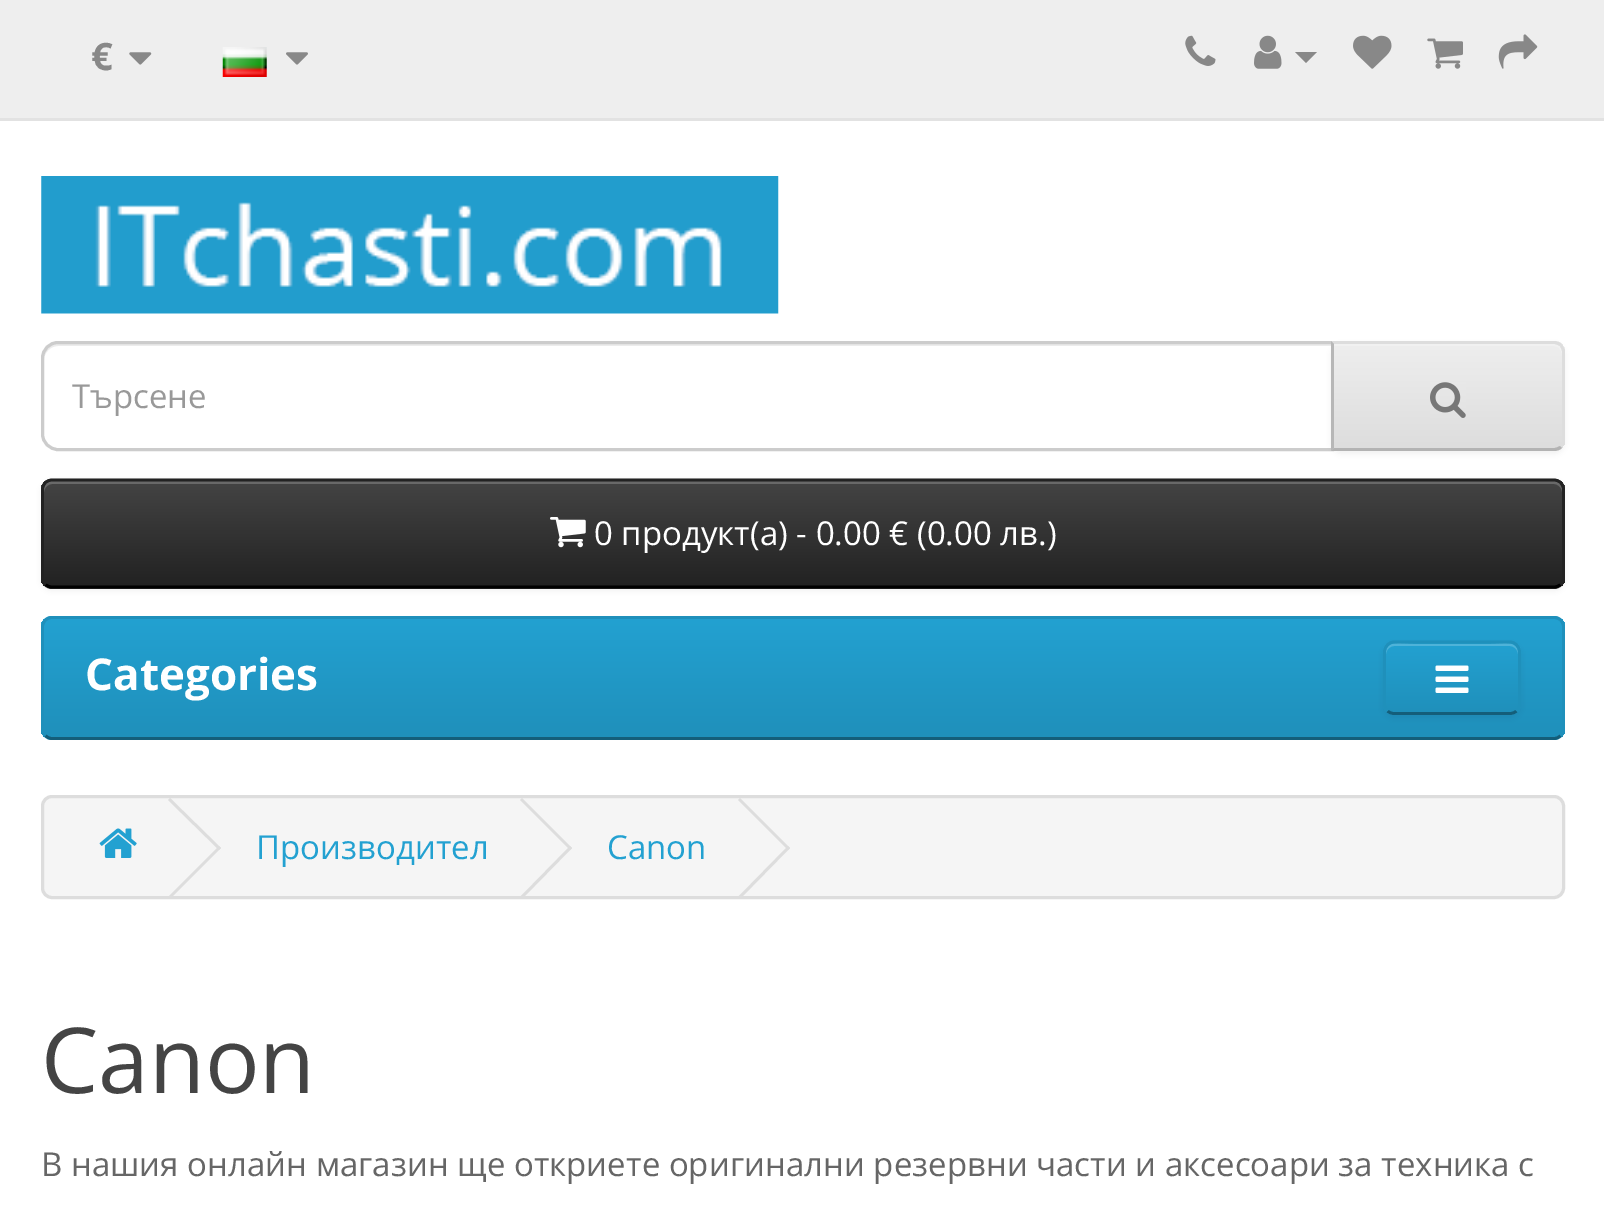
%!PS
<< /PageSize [1604 1207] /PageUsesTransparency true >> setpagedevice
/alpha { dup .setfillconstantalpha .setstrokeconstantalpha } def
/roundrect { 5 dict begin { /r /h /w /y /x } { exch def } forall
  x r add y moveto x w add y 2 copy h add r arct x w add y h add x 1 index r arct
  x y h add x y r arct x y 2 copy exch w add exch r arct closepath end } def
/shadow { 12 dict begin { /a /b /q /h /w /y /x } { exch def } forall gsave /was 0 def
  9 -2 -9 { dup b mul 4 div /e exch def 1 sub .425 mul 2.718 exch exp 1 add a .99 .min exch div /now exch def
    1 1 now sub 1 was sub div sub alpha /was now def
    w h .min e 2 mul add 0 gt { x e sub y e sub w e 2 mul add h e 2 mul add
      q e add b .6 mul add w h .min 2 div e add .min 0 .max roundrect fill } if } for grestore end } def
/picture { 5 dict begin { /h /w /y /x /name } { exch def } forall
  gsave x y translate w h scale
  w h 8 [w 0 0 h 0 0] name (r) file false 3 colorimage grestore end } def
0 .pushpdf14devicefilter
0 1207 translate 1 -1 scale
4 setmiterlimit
1 setgray
0 0 1604 1207 rectfill
0.933 setgray
0 0 1604 118 rectfill
0.886 setgray
0 118 1604 3 rectfill
/OpenSans-Bold [38 0 0 -38 0 0] selectfont
0.533 setgray
91 70 moveto (€) show
(img1.rgb) 129 52 23 13 picture
(img2.rgb) 222 47 45 30 picture
(img3.rgb) 286 52 22 13 picture
(img4.rgb) 1185 35 31 31 picture
(img5.rgb) 1254 35 28 34 picture
newpath 1295 52 moveto 1317 52 lineto 1306 63 lineto closepath fill
(img6.rgb) 1353 35 39 34 picture
(img7.rgb) 1427 38 36 31 picture
(img8.rgb) 1498 34 40 35 picture
(img9.rgb) 41 176 738 138 picture
0.925 setgray
newpath 58 346 moveto 1331 346 lineto 1331 344 lineto 58 344 lineto 50 344 44 350 44 358 curveto 44 360 lineto 44 353 50 346 58 346 curveto closepath fill
0.8 setgray
3 setlinewidth
newpath 58 342.5 moveto 1332.5 342.5 lineto 1332.5 449.5 lineto 58 449.5 lineto 49.5 449.5 42.5 442.5 42.5 434 curveto 42.5 358 lineto 42.5 349.5 49.5 342.5 58 342.5 curveto closepath stroke
gsave
72 374 1232 47 rectclip
/OpenSans-Regular [33 0 0 -33 0 0] selectfont
0.6 setgray
72 408 moveto (Търсене) show
grestore
0 setgray
1331 344 234 110 11 3 0.05 shadow
gsave
newpath 1331 341 moveto 1554 341 lineto 1560 341 1565 346 1565 352 curveto 1565 440 lineto 1565 446 1560 451 1554 451 curveto 1331 451 lineto closepath clip newpath
gsave newpath 1334 344 moveto 1565 344 lineto 1565 448 lineto 1334 448 lineto closepath clip newpath
<< /ShadingType 2 /ColorSpace /DeviceRGB /Coords [1448 344 1448 448] /Extend [true true] /Function << /FunctionType 2 /Domain [0 1] /C0 [0.933 0.933 0.933] /C1 [0.867 0.867 0.867] /N 1 >> >> shfill grestore
grestore
0.945 setgray
newpath 1334 346 moveto 1554 346 lineto 1558 346 1562 350 1562 355 curveto 1562 352 lineto 1562 348 1558 344 1554 344 curveto 1334 344 lineto closepath fill
0.867 setgray
newpath 1331 341 moveto 1334 344 lineto 1554 344 lineto 1556 344 1558 345 1560 346 curveto 1562 344 lineto 1560 342 1557 341 1554 341 curveto closepath fill
newpath 1565 442 moveto 1564 444 1563 446 1562 448 curveto 1560 446 lineto 1561 444 1562 442 1562 440 curveto 1562 352 lineto 1562 350 1561 348 1560 346 curveto 1562 344 lineto 1563 346 1564 348 1565 350 curveto closepath fill
0.702 setgray
newpath 1554 451 moveto 1557 451 1560 450 1562 448 curveto 1560 446 lineto 1558 447 1556 448 1554 448 curveto 1334 448 lineto 1331 451 lineto closepath fill
0.718 setgray
newpath 1331 341 moveto 1331 451 lineto 1334 448 lineto 1334 344 lineto closepath fill
(img10.rgb) 1430 382 36 36 picture
0 setgray
41 481 1524 110 11 3 0.05 shadow
0.212 setgray
41 479 1524 110 11 roundrect fill
gsave
41 479 1524 110 11 roundrect clip newpath
gsave newpath 41 481 moveto 1565 481 lineto 1565 586 lineto 41 586 lineto closepath clip newpath
<< /ShadingType 2 /ColorSpace /DeviceRGB /Coords [803 481 803 586] /Extend [true true] /Function << /FunctionType 2 /Domain [0 1] /C0 [0.267 0.267 0.267] /C1 [0.133 0.133 0.133] /N 1 >> >> shfill grestore
grestore
0.2 alpha
1 setgray
newpath 52 484 moveto 1554 484 lineto 1558 484 1562 488 1562 492 curveto 1562 489 lineto 1562 485 1558 481 1554 481 curveto 52 481 lineto 48 481 44 485 44 489 curveto 44 492 lineto 44 488 48 484 52 484 curveto closepath fill
1 alpha
0 setgray
2.8 setlinewidth
newpath 1560.5 584.5 moveto 1559 586 1556.5 587 1554 587 curveto 52 587 lineto 49.5 587 47 586 45.5 584.5 curveto stroke
0.133 setgray
newpath 45.5 584.5 moveto 43.5 582.5 42.5 580 42.5 577.5 curveto 42.5 489.5 lineto 42.5 487 43.5 484.5 45.5 482.5 curveto 47 481 49.5 480 52 480 curveto 1554 480 lineto 1556.5 480 1559 481 1560.5 482.5 curveto 1562.5 484.5 1563.5 487 1563.5 489.5 curveto 1563.5 577.5 lineto 1563.5 580 1562.5 582.5 1560.5 584.5 curveto stroke
(img11.rgb) 550 517 36 31 picture
/OpenSans-Regular [33 0 0 -33 0 0] selectfont
1 setgray
594 545 moveto (0 продукт\(а\) - 0.00 € \(0.00 лв.\)) show
0.133 0.604 0.784 setrgbcolor
41 616 1524 124 11 roundrect fill
gsave
41 616 1524 124 11 roundrect clip newpath
gsave newpath 41 619 moveto 1565 619 lineto 1565 737 lineto 41 737 lineto closepath clip newpath
<< /ShadingType 2 /ColorSpace /DeviceRGB /Coords [803 619 803 737] /Extend [true true] /Function << /FunctionType 2 /Domain [0 1] /C0 [0.137 0.631 0.82] /C1 [0.122 0.565 0.733] /N 1 >> >> shfill grestore
grestore
0.078 0.369 0.478 setrgbcolor
newpath 1560.5 735.5 moveto 1559 737.5 1556.5 738.5 1554 738.5 curveto 52 738.5 lineto 49.5 738.5 47 737.5 45.5 735.5 curveto stroke
0.122 0.565 0.733 setrgbcolor
newpath 45.5 735.5 moveto 43.5 734 42.5 731.5 42.5 729 curveto 42.5 627 lineto 42.5 624.5 43.5 622 45.5 620 curveto 47 618.5 49.5 617.5 52 617.5 curveto 1554 617.5 lineto 1556.5 617.5 1559 618.5 1560.5 620 curveto 1562.5 622 1563.5 624.5 1563.5 627 curveto 1563.5 729 lineto 1563.5 731.5 1562.5 734 1560.5 735.5 curveto stroke
/OpenSans-Bold [44 0 0 -44 0 0] selectfont
1 setgray
85 690 moveto (Categories) show
0 setgray
1383 644 138 74 11 3 0.05 shadow
0.133 0.604 0.784 setrgbcolor
1383 641 138 74 11 roundrect fill
gsave
1383 641 138 74 11 roundrect clip newpath
gsave newpath 1383 644 moveto 1521 644 lineto 1521 712 lineto 1383 712 lineto closepath clip newpath
<< /ShadingType 2 /ColorSpace /DeviceRGB /Coords [1452 644 1452 712] /Extend [true true] /Function << /FunctionType 2 /Domain [0 1] /C0 [0.137 0.631 0.82] /C1 [0.122 0.565 0.733] /N 1 >> >> shfill grestore
grestore
0.2 alpha
1 setgray
newpath 1394 646 moveto 1510 646 lineto 1514 646 1518 650 1518 654 curveto 1518 639 1501 644 1491 644 curveto 1413 644 lineto 1403 644 1386 639 1386 654 curveto 1386 650 1390 646 1394 646 curveto closepath fill
1 alpha
0.078 0.369 0.478 setrgbcolor
newpath 1516.5 711 moveto 1515 712.5 1512.5 713.5 1510 713.5 curveto 1394 713.5 lineto 1391.5 713.5 1389 712.5 1387.5 711 curveto stroke
0.122 0.565 0.733 setrgbcolor
newpath 1387.5 711 moveto 1385.5 709 1384.5 706.5 1384.5 704 curveto 1384.5 652 lineto 1384.5 649 1385.5 646.5 1387.5 645 curveto 1389 643 1391.5 642 1394 642 curveto 1510 642 lineto 1512.5 642 1515 643 1516.5 645 curveto 1518.5 646.5 1519.5 649 1519.5 652 curveto 1519.5 704 lineto 1519.5 706.5 1518.5 709 1516.5 711 curveto stroke
(img12.rgb) 1435 665 34 28 picture
0.961 setgray
42.5 796.5 1521 101 9.5 roundrect gsave fill grestore
0.867 setgray
3 setlinewidth
stroke
(img13.rgb) 99 828 38 30 picture
newpath 168 800 moveto 170 798 lineto 221 848 lineto 219 850 lineto closepath fill
newpath 168 897 moveto 219 846 lineto 221 848 lineto 170 899 lineto closepath fill
/OpenSans-Regular [33 0 0 -33 0 0] selectfont
0.137 0.631 0.82 setrgbcolor
256 859 moveto (Производител) show
0.867 setgray
newpath 520 800 moveto 522 798 lineto 572 848 lineto 570 850 lineto closepath fill
newpath 520 897 moveto 570 846 lineto 572 848 lineto 522 899 lineto closepath fill
0.137 0.631 0.82 setrgbcolor
607 859 moveto (Canon) show
0.867 setgray
newpath 738 800 moveto 740 798 lineto 790 848 lineto 788 850 lineto closepath fill
newpath 738 897 moveto 788 846 lineto 790 848 lineto 740 899 lineto closepath fill
/OpenSans-Regular [91 0 0 -91 0 0] selectfont
0.267 setgray
41 1093 moveto (Canon) show
/OpenSans-Regular [33 0 0 -33 0 0] selectfont
0.4 setgray
41 1176 moveto (В нашия онлайн магазин ще откриете оригинални резервни части и аксесоари за техника с) show
.poppdf14devicefilter showpage
